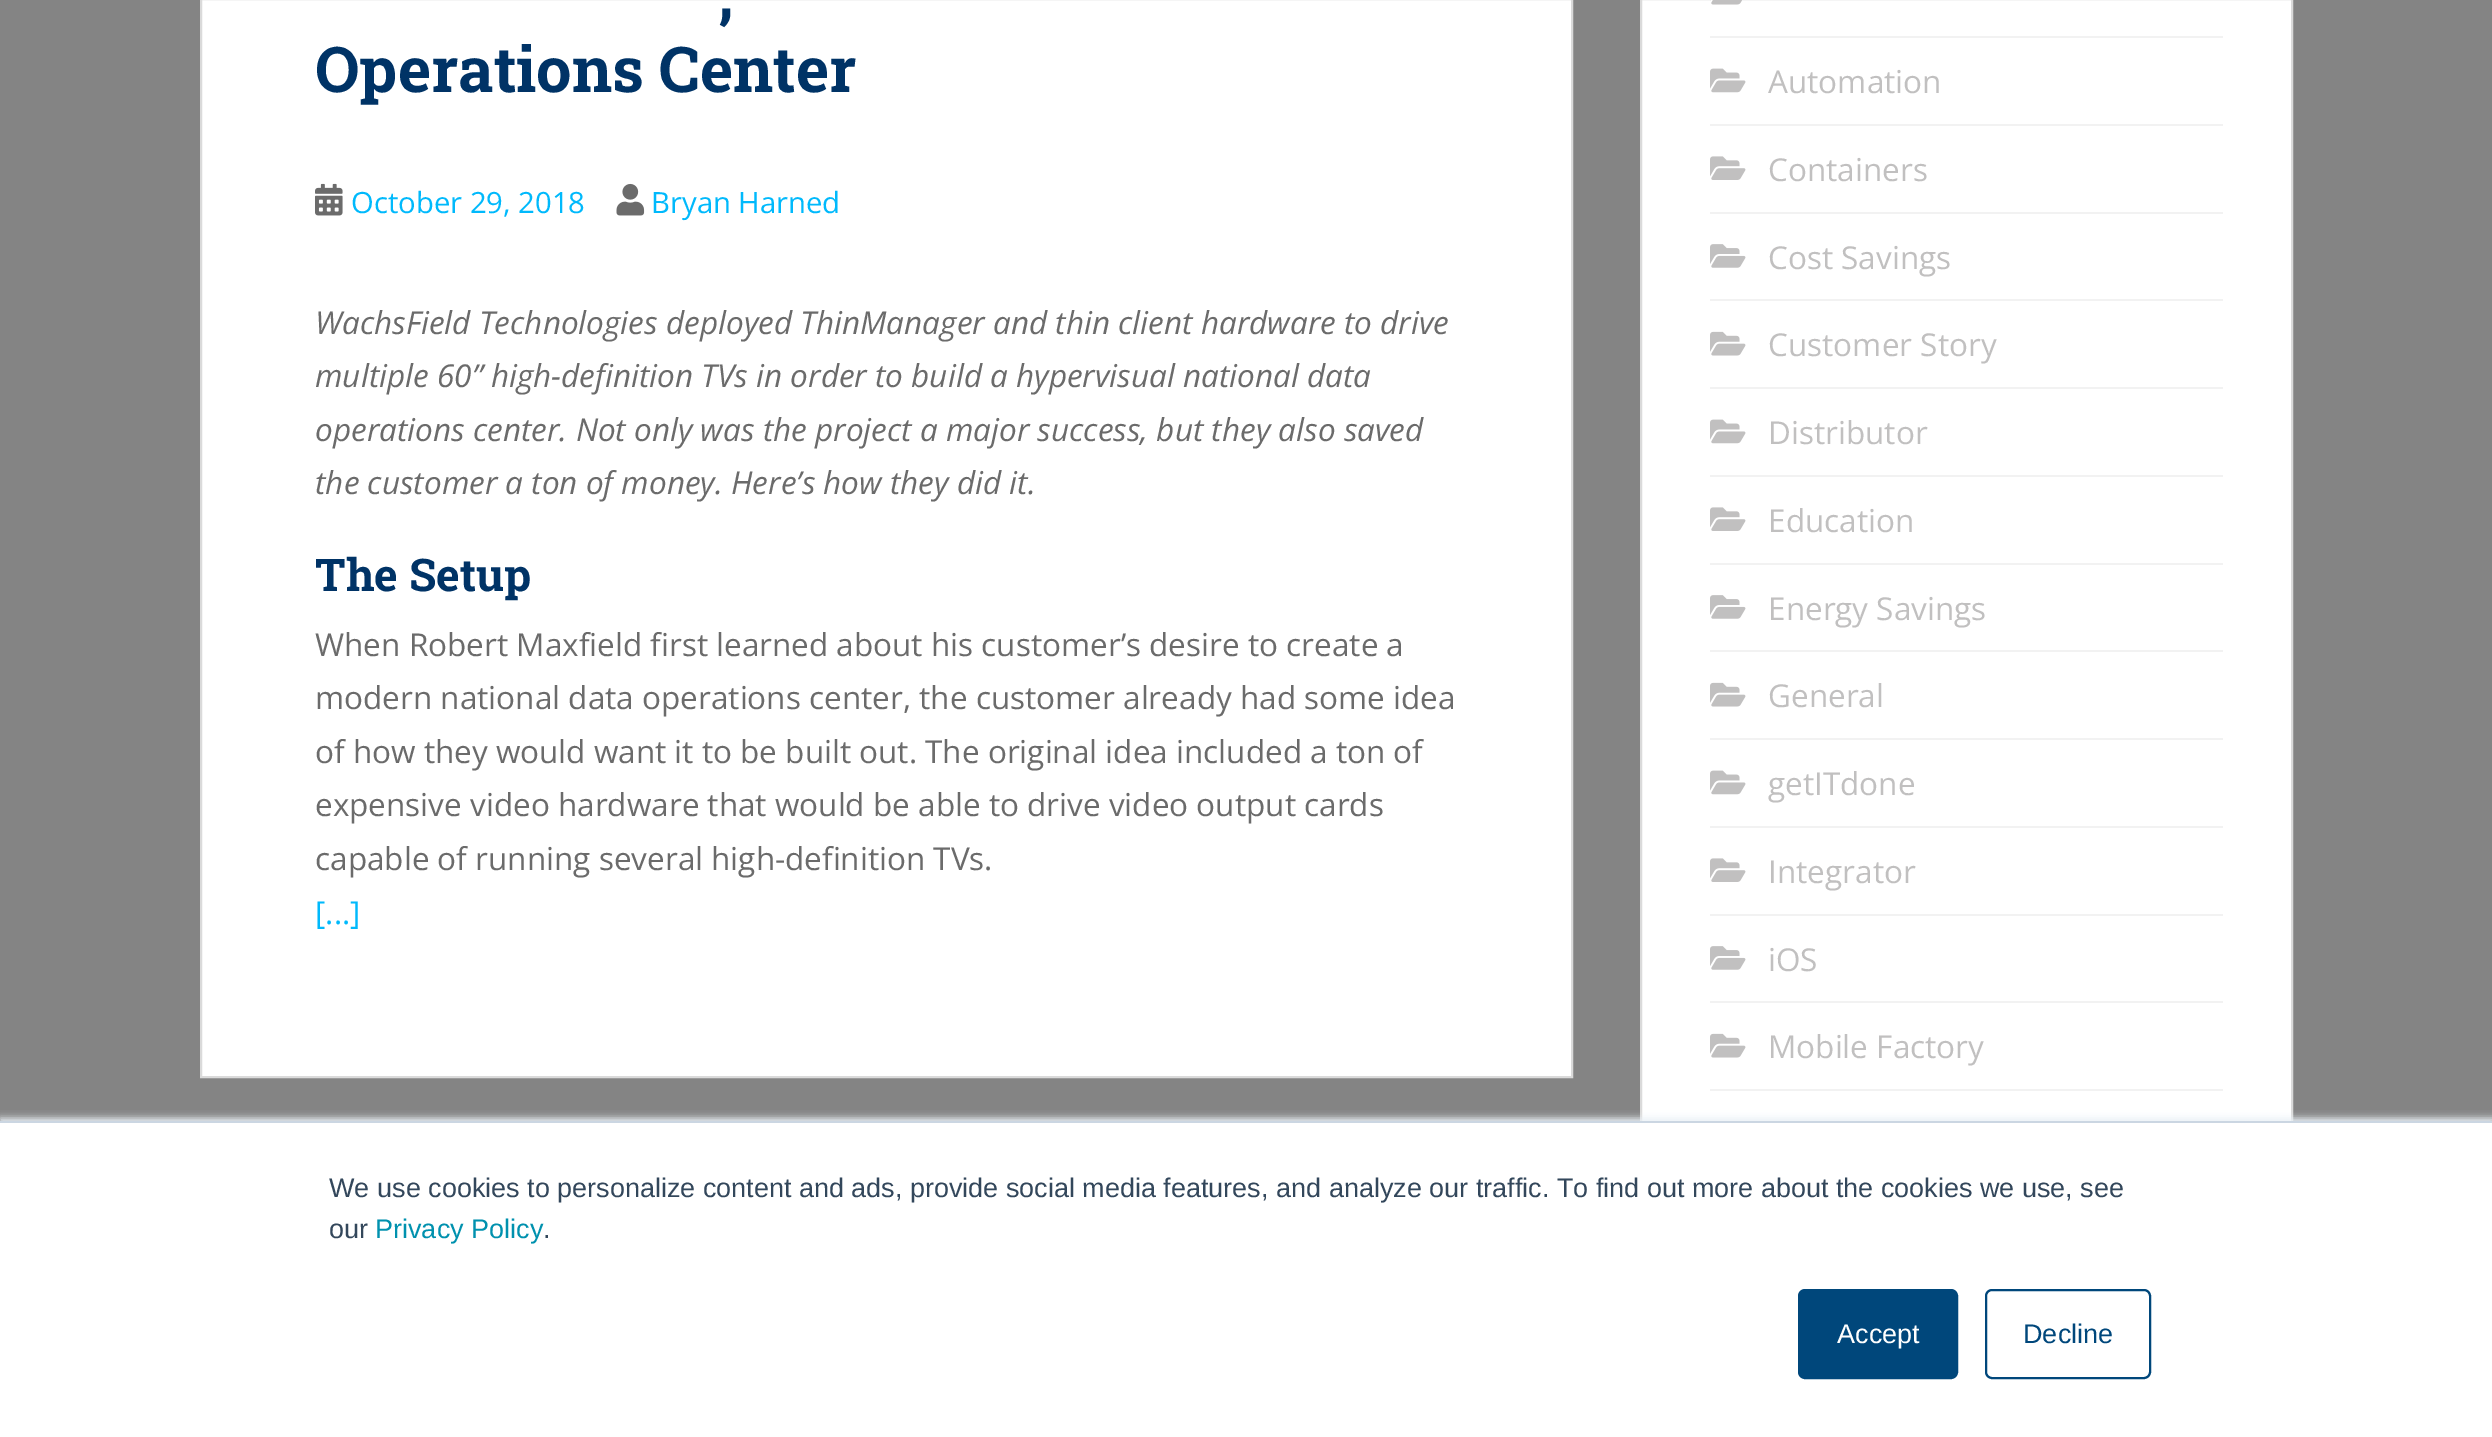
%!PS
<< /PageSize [2492 1437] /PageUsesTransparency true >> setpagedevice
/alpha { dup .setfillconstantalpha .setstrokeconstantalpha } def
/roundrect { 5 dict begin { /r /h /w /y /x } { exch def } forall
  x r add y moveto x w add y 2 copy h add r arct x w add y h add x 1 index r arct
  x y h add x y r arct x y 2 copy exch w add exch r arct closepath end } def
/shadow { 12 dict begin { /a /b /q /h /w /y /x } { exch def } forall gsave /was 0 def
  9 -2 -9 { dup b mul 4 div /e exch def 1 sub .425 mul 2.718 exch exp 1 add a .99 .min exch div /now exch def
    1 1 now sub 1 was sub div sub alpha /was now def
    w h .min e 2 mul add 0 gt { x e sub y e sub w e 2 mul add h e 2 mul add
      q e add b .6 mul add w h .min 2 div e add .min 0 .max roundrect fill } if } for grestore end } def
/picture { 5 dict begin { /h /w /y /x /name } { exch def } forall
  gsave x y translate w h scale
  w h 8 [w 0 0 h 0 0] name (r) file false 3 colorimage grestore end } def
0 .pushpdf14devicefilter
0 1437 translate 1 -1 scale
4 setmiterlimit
0.518 setgray
0 0 2492 1437 rectfill
1 setgray
newpath 201 -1 moveto 1572 -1 lineto 1572 1077 lineto 201 1077 lineto closepath gsave fill grestore
0.855 setgray
2 setlinewidth
stroke
/RobotoSlab-Bold [63 0 0 -63 0 0] selectfont
0 0.2 0.4 setrgbcolor
718 16 moveto (,) show
315 92 moveto (Operations Center) show
(img1.rgb) 315 183 28 33 picture
/OpenSans-Regular [29.25 0 0 -29.25 0 0] selectfont
0 0.725 0.988 setrgbcolor
351 213 moveto (October 29, 2018) show
(img2.rgb) 616 183 29 33 picture
651 213 moveto (Bryan Harned) show
/OpenSans-Italic [31.5 0 0 -31.5 0 0] selectfont
0.42 setgray
315 334 moveto (WachsField Technologies deployed ThinManager and thin client hardware to drive) show
315 387 moveto (multiple 60” high-definition TVs in order to build a hypervisual national data) show
315 441 moveto (operations center. Not only was the project a major success, but they also saved) show
315 494 moveto (the customer a ton of money. Here’s how they did it.) show
/RobotoSlab-Bold [45 0 0 -45 0 0] selectfont
0 0.2 0.4 setrgbcolor
315 591 moveto (The Setup) show
/OpenSans-Regular [31.5 0 0 -31.5 0 0] selectfont
0.42 setgray
315 656 moveto (When Robert Maxfield first learned about his customer’s desire to create a) show
315 709 moveto (modern national data operations center, the customer already had some idea) show
315 763 moveto (of how they would want it to be built out. The original idea included a ton of) show
315 816 moveto (expensive video hardware that would be able to drive video output cards) show
315 870 moveto (capable of running several high-definition TVs.) show
0 0.725 0.988 setrgbcolor
315 924 moveto ([...]) show
1 setgray
1642 0 649 1121 rectfill
0.855 setgray
1641 -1 651 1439 rectstroke
0.949 setgray
1710 36 513 2 rectfill
(img3.rgb) 1710 0 32 5 picture
1710 124 513 2 rectfill
(img4.rgb) 1710 68 36 25 picture
0.757 0.753 0.753 setrgbcolor
1768 93 moveto (Automation) show
0.949 setgray
1710 212 513 2 rectfill
(img5.rgb) 1710 156 36 24 picture
0.757 0.753 0.753 setrgbcolor
1768 181 moveto (Containers) show
0.949 setgray
1710 299 513 2 rectfill
(img6.rgb) 1710 244 36 24 picture
0.757 0.753 0.753 setrgbcolor
1768 269 moveto (Cost Savings) show
0.949 setgray
1710 387 513 2 rectfill
(img7.rgb) 1710 331 36 25 picture
0.757 0.753 0.753 setrgbcolor
1768 356 moveto (Customer Story) show
0.949 setgray
1710 475 513 2 rectfill
(img8.rgb) 1710 419 36 25 picture
0.757 0.753 0.753 setrgbcolor
1768 444 moveto (Distributor) show
0.949 setgray
1710 563 513 2 rectfill
(img5.rgb) 1710 507 36 24 picture
0.757 0.753 0.753 setrgbcolor
1768 532 moveto (Education) show
0.949 setgray
1710 650 513 2 rectfill
(img6.rgb) 1710 595 36 24 picture
0.757 0.753 0.753 setrgbcolor
1768 620 moveto (Energy Savings) show
0.949 setgray
1710 738 513 2 rectfill
(img7.rgb) 1710 682 36 25 picture
0.757 0.753 0.753 setrgbcolor
1768 707 moveto (General) show
0.949 setgray
1710 826 513 2 rectfill
(img8.rgb) 1710 770 36 25 picture
0.757 0.753 0.753 setrgbcolor
1768 795 moveto (getITdone) show
0.949 setgray
1710 914 513 2 rectfill
(img5.rgb) 1710 858 36 24 picture
0.757 0.753 0.753 setrgbcolor
1768 883 moveto (Integrator) show
0.949 setgray
1710 1001 513 2 rectfill
(img6.rgb) 1710 946 36 24 picture
0.757 0.753 0.753 setrgbcolor
1768 971 moveto (iOS) show
0.949 setgray
1710 1089 513 2 rectfill
(img7.rgb) 1710 1033 36 25 picture
0.757 0.753 0.753 setrgbcolor
1768 1058 moveto (Mobile Factory) show
0.918 0.941 0.965 setrgbcolor
0 1118 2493 318 0 3.5 1 shadow
1 setgray
0 1123 2492 314 rectfill
0.796 0.839 0.886 setrgbcolor
0 1121 2492 2 rectfill
/LiberationSans-Regular [27 0 0 -27 0 0] selectfont
0.2 0.278 0.357 setrgbcolor
329 1197 moveto (We use cookies to personalize content and ads, provide social media features, and analyze our traffic. To find out more about the cookies we use, see) show
329 1238 moveto (our) show
0 0.569 0.682 setrgbcolor
375 1238 moveto (Privacy Policy) show
0.2 0.278 0.357 setrgbcolor
543 1238 moveto (.) show
0 0.278 0.482 setrgbcolor
1799 1290 158 88 6 roundrect gsave fill grestore
stroke
1 setgray
1837 1343 moveto (Accept) show
0 0.278 0.482 setrgbcolor
1986 1290 164 88 6 roundrect stroke
2023 1343 moveto (Decline) show
.poppdf14devicefilter showpage
